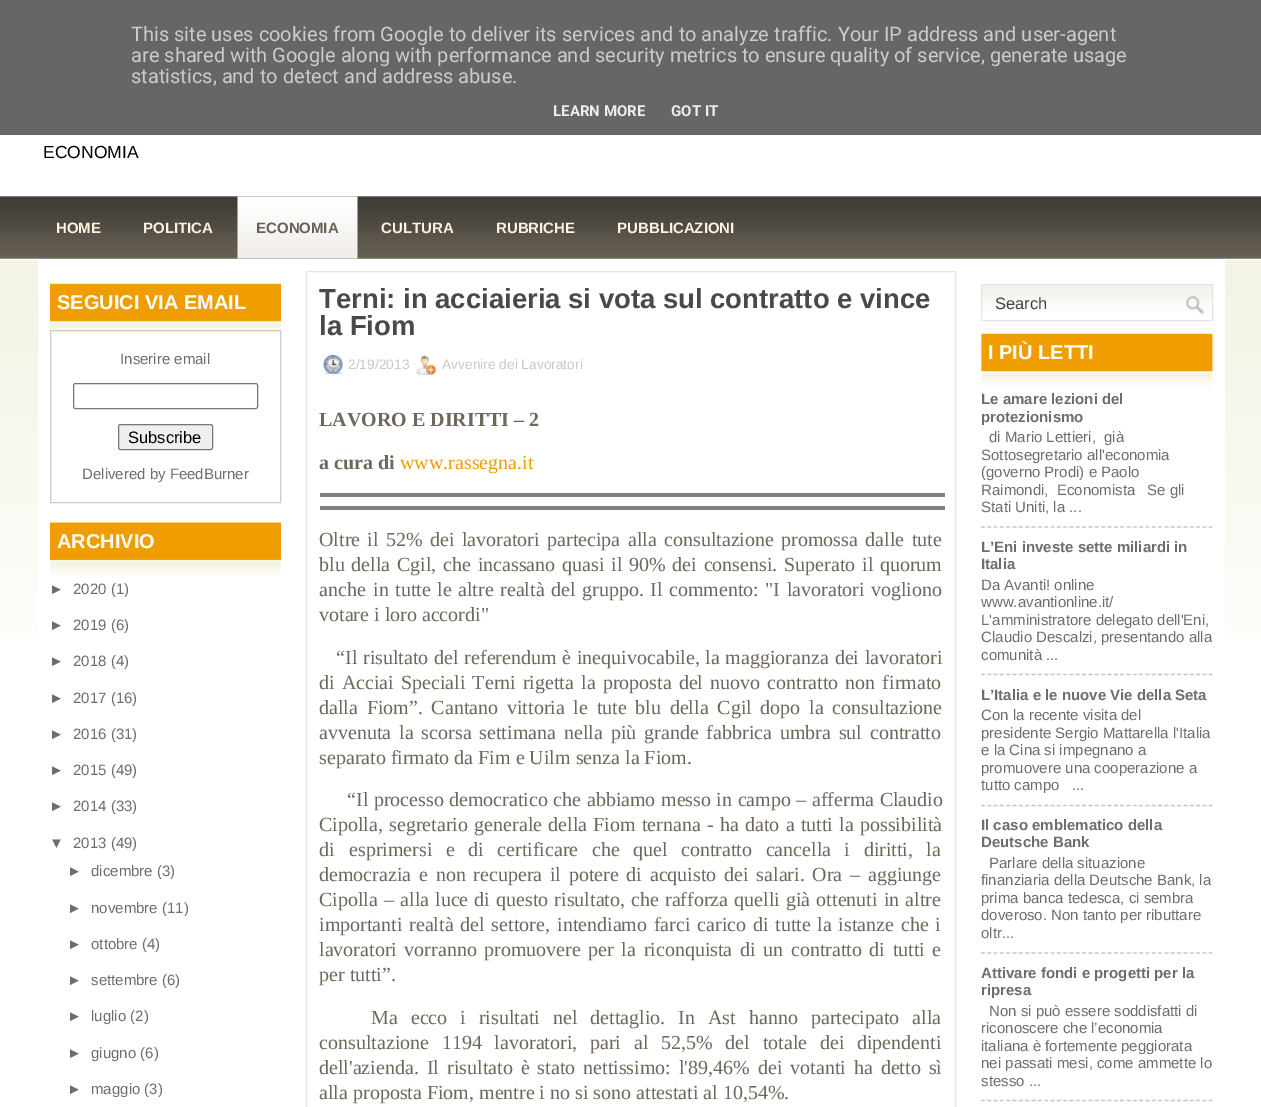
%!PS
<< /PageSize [1261 1107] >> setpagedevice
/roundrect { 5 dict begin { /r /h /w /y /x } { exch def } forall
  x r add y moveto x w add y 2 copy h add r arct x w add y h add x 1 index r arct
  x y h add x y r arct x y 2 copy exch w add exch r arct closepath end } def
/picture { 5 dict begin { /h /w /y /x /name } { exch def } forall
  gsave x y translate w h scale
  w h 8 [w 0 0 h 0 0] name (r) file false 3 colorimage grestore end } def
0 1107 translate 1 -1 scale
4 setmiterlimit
1 setgray
0 0 1261 1107 rectfill
(img1.rgb) 0 196 1261 443 picture
0.4 setgray
0 0 1261 135 rectfill
/Roboto-Regular [20 0 0 -20 0 0] selectfont
0.8 setgray
131 41 moveto (This site uses cookies from Google to deliver its services and to analyze traffic. Your IP address and user-agent) show
131 62 moveto (are shared with Google along with performance and security metrics to ensure quality of service, generate usage) show
131 83 moveto (statistics, and to detect and address abuse.) show
/Roboto-Bold [15 0 0 -15 0 0] selectfont
0.933 setgray
553 116 moveto (LEARN MORE) show
671 116 moveto (GOT IT) show
/LiberationSans-Regular [17.5 0 0 -17.5 0 0] selectfont
0 setgray
43 158 moveto (ECONOMIA) show
/LiberationSans-Bold [15 0 0 -15 0 0] selectfont
0.992 0.953 0.875 setrgbcolor
56 233 moveto (HOME) show
143 233 moveto (POLITICA) show
(img2.rgb) 237 196 121 63 picture
0.404 0.376 0.329 setrgbcolor
256 233 moveto (ECONOMIA) show
0.992 0.953 0.875 setrgbcolor
381 233 moveto (CULTURA) show
496 233 moveto (RUBRICHE) show
617 233 moveto (PUBBLICAZIONI) show
1 setgray
38 260 1187 379 rectfill
(img3.rgb) 50 283 232 53 picture
/LiberationSans-Bold [20 0 0 -20 0 0] selectfont
57 309 moveto (SEGUICI VIA EMAIL) show
0.8 setgray
50.5 330.5 230 172 rectstroke
/LiberationSans-Regular [15 0 0 -15 0 0] selectfont
0.427 0.427 0.431 setrgbcolor
120 364 moveto (Inserire email) show
0.463 setgray
73.5 383.5 184 25 2 roundrect stroke
0.937 setgray
118.5 424.5 94 25 2 roundrect gsave fill grestore
0.463 setgray
stroke
/LiberationSans-Regular [16.5 0 0 -16.5 0 0] selectfont
0 setgray
128 443 moveto (Subscribe) show
/LiberationSans-Regular [15 0 0 -15 0 0] selectfont
0.427 0.427 0.431 setrgbcolor
82 479 moveto (Delivered by FeedBurner) show
(img4.rgb) 50 522 232 53 picture
/LiberationSans-Bold [20 0 0 -20 0 0] selectfont
1 setgray
57 548 moveto (ARCHIVIO) show
/LiberationSans-Regular [15 0 0 -15 0 0] selectfont
0.427 0.427 0.431 setrgbcolor
49 594 moveto (►) show
73 594 moveto (2020 \(1\)) show
49 630 moveto (►) show
73 630 moveto (2019 \(6\)) show
49 666 moveto (►) show
73 666 moveto (2018 \(4\)) show
49 703 moveto (►) show
73 703 moveto (2017 \(16\)) show
49 739 moveto (►) show
73 739 moveto (2016 \(31\)) show
49 775 moveto (►) show
73 775 moveto (2015 \(49\)) show
49 811 moveto (►) show
73 811 moveto (2014 \(33\)) show
49 848 moveto (▼) show
73 848 moveto (2013 \(49\)) show
67 876 moveto (►) show
91 876 moveto (dicembre \(3\)) show
67 913 moveto (►) show
91 913 moveto (novembre \(11\)) show
67 949 moveto (►) show
91 949 moveto (ottobre \(4\)) show
67 985 moveto (►) show
91 985 moveto (settembre \(6\)) show
67 1021 moveto (►) show
91 1021 moveto (luglio \(2\)) show
67 1058 moveto (►) show
91 1058 moveto (giugno \(6\)) show
67 1094 moveto (►) show
91 1094 moveto (maggio \(3\)) show
0.91 0.898 0.875 setrgbcolor
306.5 271.5 649 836 rectstroke
/LiberationSans-Bold [27.5 0 0 -27.5 0 0] selectfont
0.29 0.282 0.282 setrgbcolor
319 308 moveto (Terni: in acciaieria si vota sul contratto e vince) show
319 335 moveto (la Fiom) show
(img5.rgb) 322 355 21 19 picture
/LiberationSans-Regular [13.75 0 0 -13.75 0 0] selectfont
0.792 0.784 0.765 setrgbcolor
348 369 moveto (2/19/2013) show
(img6.rgb) 416 355 21 20 picture
442 369 moveto (Avvenire dei Lavoratori) show
/LiberationSerif-Bold [20 0 0 -20 0 0] selectfont
0.431 0.404 0.357 setrgbcolor
319 426 moveto (LAVORO E DIRITTI – 2) show
319 469 moveto (a cura di) show
/LiberationSerif-Regular [20 0 0 -20 0 0] selectfont
0.937 0.616 0 setrgbcolor
400 469 moveto (www.rassegna.it) show
0.502 setgray
320 493 625 4 rectfill
320 506 625 4 rectfill
0.431 0.404 0.357 setrgbcolor
319 546 moveto 2.4 0 32 (Oltre il 52% dei lavoratori partecipa alla consultazione promossa dalle tute) widthshow
319 571 moveto 1.75 0 32 (blu della Cgil, che incassano quasi il 90% dei consensi. Superato il quorum) widthshow
319 596 moveto (anche) show
373 596 moveto 1.5 0 32 (in tutte le altre realtà del gruppo. Il commento: "I lavoratori vogliono) widthshow
319 621 moveto (votare i loro accordi") show
336 664 moveto 0.75 0 32 (“Il risultato del referendum è inequivocabile, la maggioranza dei lavoratori) widthshow
319 689 moveto 2.1 0 32 (di Acciai Speciali Terni rigetta la proposta del nuovo contratto non firmato) widthshow
319 714 moveto 3.75 0 32 (dalla Fiom”. Cantano vittoria le tute blu della Cgil dopo la consultazione) widthshow
319 739 moveto 2.9 0 32 (avvenuta la scorsa settimana nella più grande fabbrica umbra sul contratto) widthshow
319 764 moveto (separato firmato da Fim e Uilm senza la Fiom.) show
347 806 moveto 0.5 0 32 (“Il processo democratico che abbiamo messo in campo – afferma Claudio) widthshow
319 831 moveto 1.25 0 32 (Cipolla, segretario generale della Fiom ternana - ha dato a tutti la possibilità) widthshow
319 856 moveto (di) show
349 856 moveto 8.5 0 32 (esprimersi e di certificare che quel contratto cancella i diritti, la) widthshow
319 881 moveto 2.75 0 32 (democrazia e non recupera il potere di acquisto dei salari. Ora – aggiunge) widthshow
319 906 moveto 1.1 0 32 (Cipolla – alla luce di questo risultato, che rafforza quelli già ottenuti in altre) widthshow
319 931 moveto 1.75 0 32 (importanti realtà del settore,) widthshow
557 931 moveto 1.75 0 32 (intendiamo farci carico di tutte la istanze che i) widthshow
319 956 moveto 2.6 0 32 (lavoratori vorranno promuovere per la riconquista di un contratto di tutti e) widthshow
319 981 moveto (per tutti”.) show
371 1024 moveto 8 0 32 (Ma ecco i risultati nel dettaglio. In Ast hanno partecipato alla) widthshow
319 1049 moveto 7.75 0 32 (consultazione 1194 lavoratori, pari al 52,5% del totale dei dipendenti) widthshow
319 1074 moveto 3 0 32 (dell'azienda. Il) widthshow
447 1074 moveto 3 0 32 (risultato è stato nettissimo: l'89,46% dei votanti ha detto sì) widthshow
319 1099 moveto (alla proposta Fiom, mentre i no si sono attestati al 10,54%.) show
(img7.rgb) 982 285 230 27 picture
0.91 0.894 0.894 setrgbcolor
981.5 284.5 231 36 rectstroke
/LiberationSans-Regular [16.5 0 0 -16.5 0 0] selectfont
0.275 0.259 0.227 setrgbcolor
995 309 moveto (Search) show
(img8.rgb) 1186 296 18 18 picture
(img9.rgb) 981 333 232 53 picture
/LiberationSans-Bold [20 0 0 -20 0 0] selectfont
1 setgray
988 359 moveto (I PIÙ LETTI) show
0.776 setgray
1.2 setlinewidth
[3.75 2.58] 0 setdash
newpath 981 527 moveto 1212.5 527 lineto stroke
/LiberationSans-Bold [15 0 0 -15 0 0] selectfont
0.427 0.427 0.431 setrgbcolor
981 404 moveto (Le amare lezioni del) show
981 422 moveto (protezionismo) show
/LiberationSans-Regular [15 0 0 -15 0 0] selectfont
989 442 moveto (di Mario Lettieri,  già) show
981 460 moveto (Sottosegretario all'economia) show
981 477 moveto (\(governo Prodi\) e Paolo) show
981 495 moveto (Raimondi,  Economista) show
1147 495 moveto (Se gli) show
981 512 moveto (Stati Uniti, la ...) show
0.776 setgray
newpath 981 674.5 moveto 1212.5 674.5 lineto stroke
/LiberationSans-Bold [15 0 0 -15 0 0] selectfont
0.427 0.427 0.431 setrgbcolor
981 552 moveto (L’Eni investe sette miliardi in) show
981 569 moveto (Italia) show
/LiberationSans-Regular [15 0 0 -15 0 0] selectfont
981 590 moveto (Da Avanti! online) show
981 607 moveto (www.avantionline.it/) show
981 625 moveto (L'amministratore delegato dell'Eni,) show
981 642 moveto (Claudio Descalzi, presentando alla) show
981 660 moveto (comunità ...) show
0.776 setgray
newpath 981 805.5 moveto 1212.5 805.5 lineto stroke
/LiberationSans-Bold [15 0 0 -15 0 0] selectfont
0.427 0.427 0.431 setrgbcolor
981 700 moveto (L’Italia e le nuove Vie della Seta) show
/LiberationSans-Regular [15 0 0 -15 0 0] selectfont
981 720 moveto (Con la recente visita del) show
981 738 moveto (presidente Sergio Mattarella l'Italia) show
981 755 moveto (e la Cina si impegnano a) show
981 773 moveto (promuovere una cooperazione a) show
981 790 moveto (tutto campo) show
1072 790 moveto (...) show
0.776 setgray
newpath 981 953 moveto 1212.5 953 lineto stroke
/LiberationSans-Bold [15 0 0 -15 0 0] selectfont
0.427 0.427 0.431 setrgbcolor
981 830 moveto (Il caso emblematico della) show
981 847 moveto (Deutsche Bank) show
/LiberationSans-Regular [15 0 0 -15 0 0] selectfont
989 868 moveto (Parlare della situazione) show
981 885 moveto (finanziaria della Deutsche Bank, la) show
981 903 moveto (prima banca tedesca, ci sembra) show
981 920 moveto (doveroso. Non tanto per ributtare) show
981 938 moveto (oltr...) show
0.776 setgray
newpath 981 1100.5 moveto 1212.5 1100.5 lineto stroke
/LiberationSans-Bold [15 0 0 -15 0 0] selectfont
0.427 0.427 0.431 setrgbcolor
981 978 moveto (Attivare fondi e progetti per la) show
981 995 moveto (ripresa) show
/LiberationSans-Regular [15 0 0 -15 0 0] selectfont
989 1016 moveto (Non si può essere soddisfatti di) show
981 1033 moveto (riconoscere che l’economia) show
981 1051 moveto (italiana è fortemente peggiorata) show
981 1068 moveto (nei passati mesi, come ammette lo) show
981 1086 moveto (stesso ...) show
showpage
